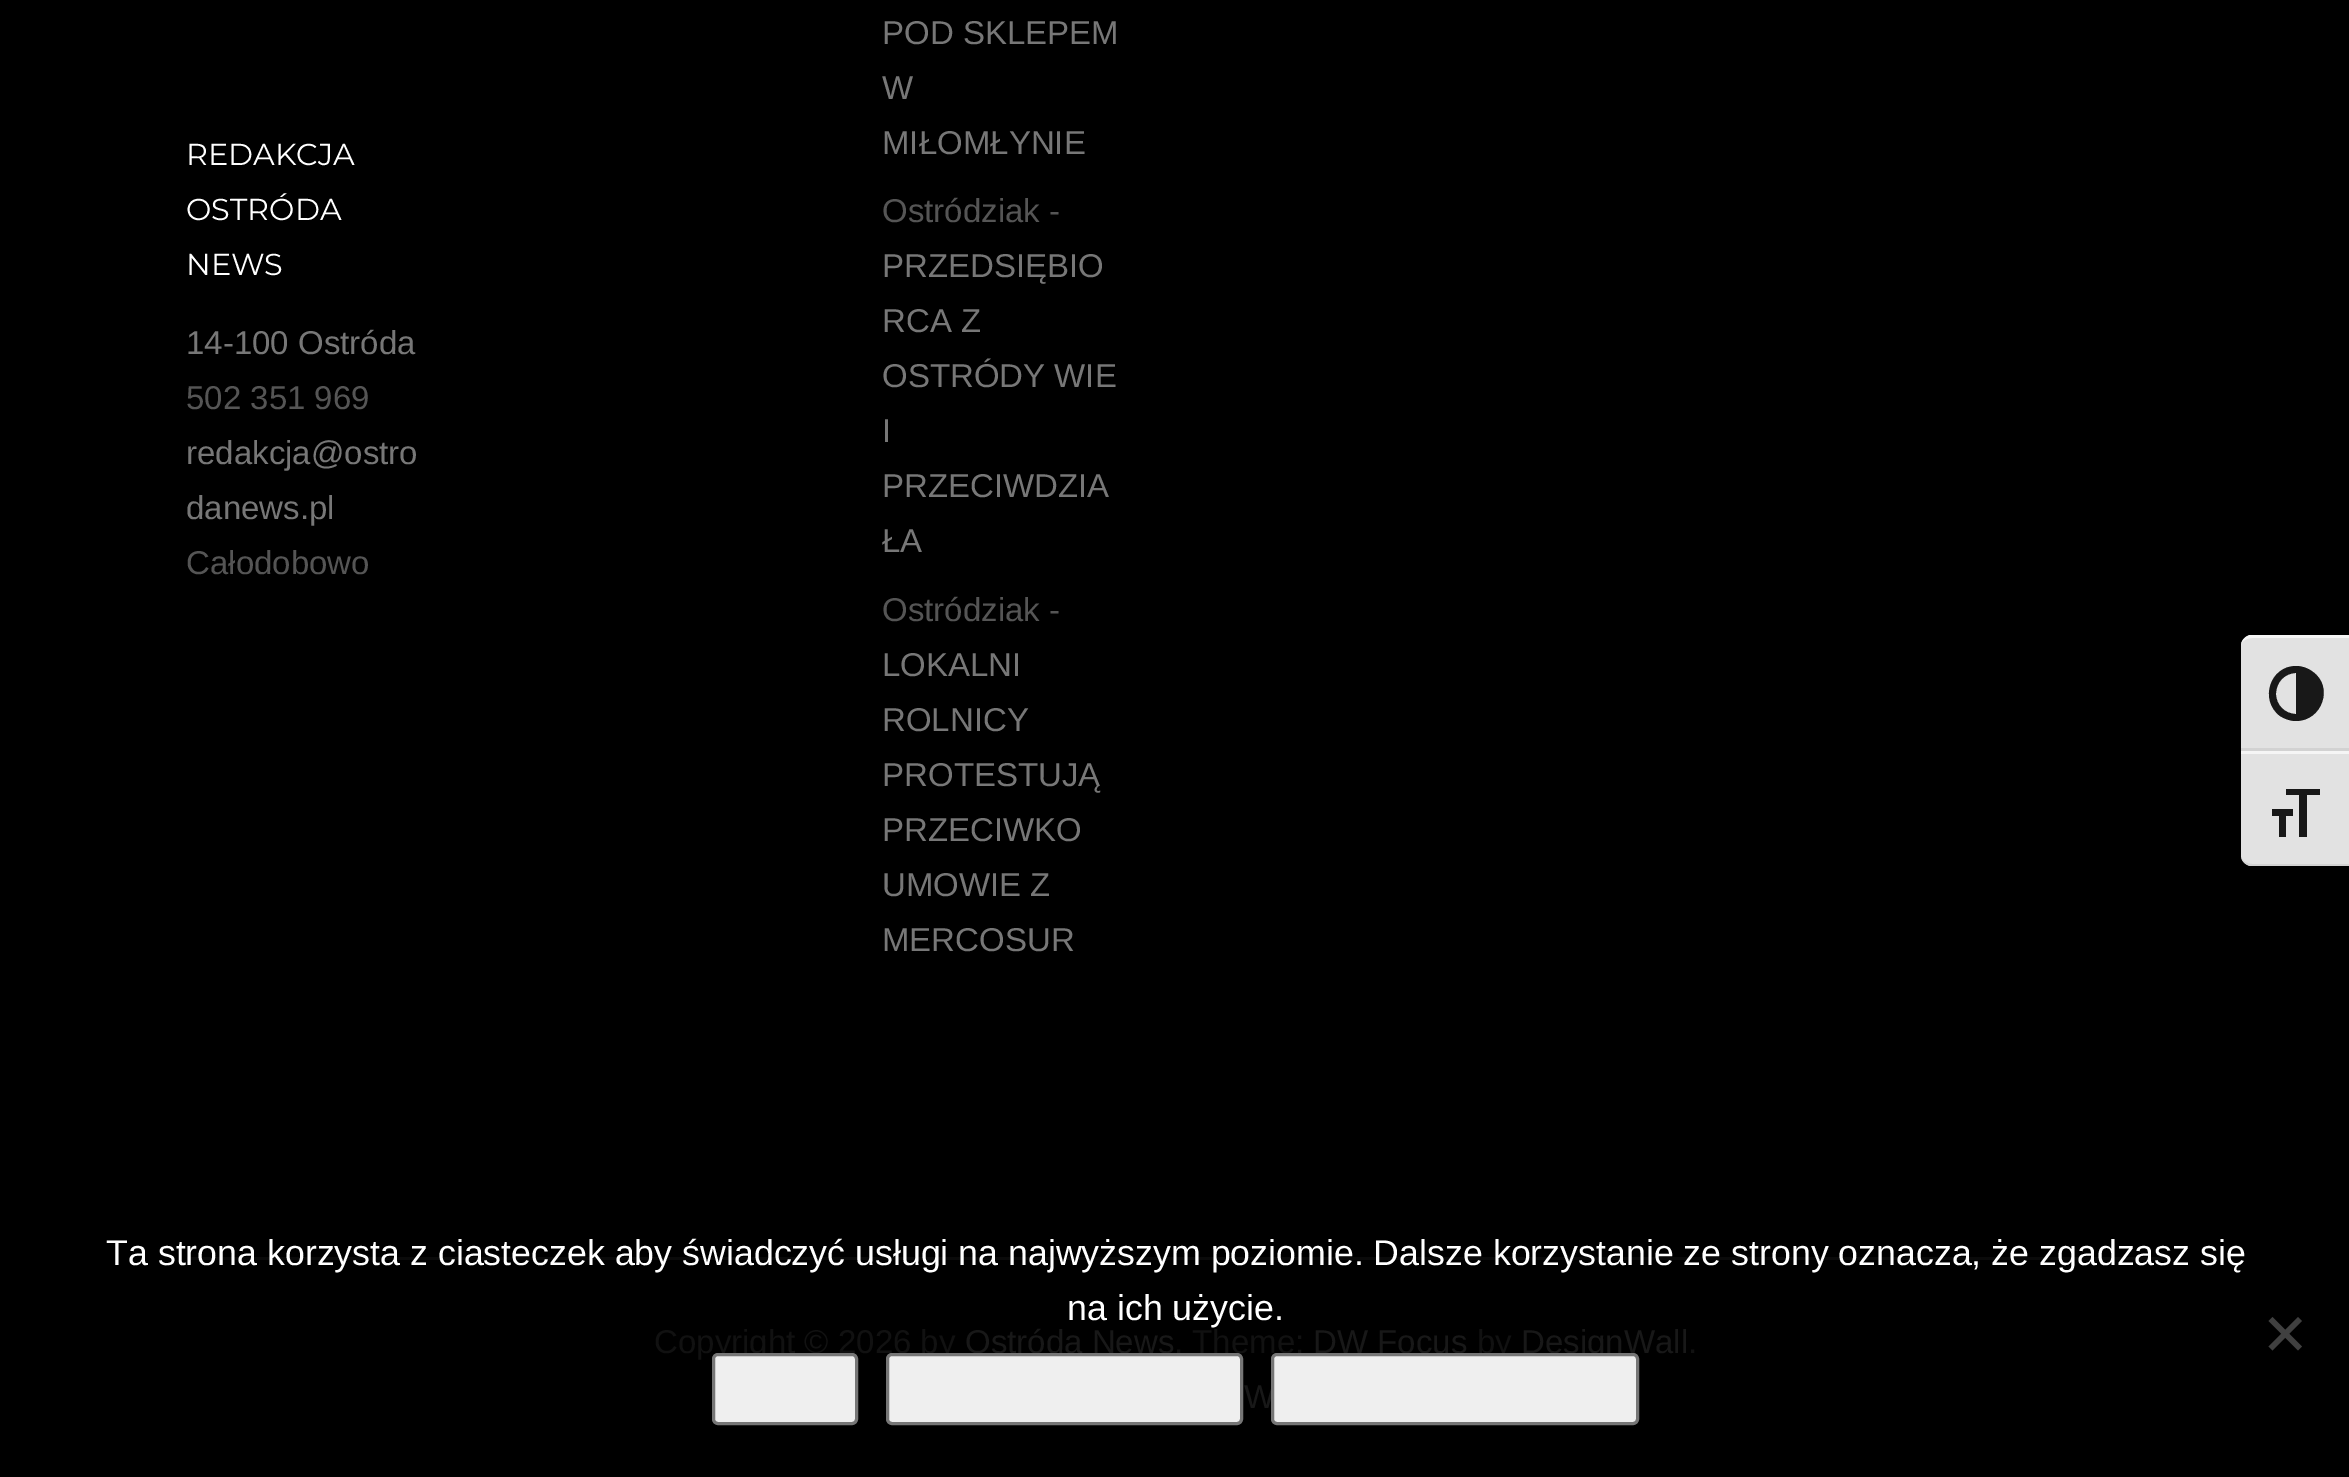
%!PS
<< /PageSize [2349 1477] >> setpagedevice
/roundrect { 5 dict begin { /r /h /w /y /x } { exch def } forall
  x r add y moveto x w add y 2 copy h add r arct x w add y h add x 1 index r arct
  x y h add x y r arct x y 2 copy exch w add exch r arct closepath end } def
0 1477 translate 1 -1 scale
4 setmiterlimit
0 setgray
0 0 2349 1477 rectfill
0.039 setgray
187 1257 1980 3 rectfill
/Montserrat-Regular [30.25 0 0 -30.25 0 0] selectfont
1 setgray
186 165 moveto (REDAKCJA) show
186 220 moveto (OSTRÓDA) show
186 275 moveto (NEWS) show
/LiberationSans-Regular [33 0 0 -33 0 0] selectfont
0.467 setgray
186 354 moveto (14-100 Ostróda) show
0.333 setgray
186 409 moveto (502 351 969) show
0.467 setgray
186 464 moveto (redakcja@ostro) show
186 519 moveto (danews.pl) show
0.333 setgray
186 574 moveto (Całodobowo) show
0.467 setgray
882 44 moveto (POD SKLEPEM) show
882 99 moveto (W) show
882 154 moveto (MIŁOMŁYNIE) show
0.333 setgray
882 222 moveto (Ostródziak -) show
0.467 setgray
882 277 moveto (PRZEDSIĘBIO) show
882 332 moveto (RCA Z) show
882 387 moveto (OSTRÓDY WIE) show
882 442 moveto (I) show
882 497 moveto (PRZECIWDZIA) show
882 552 moveto (ŁA) show
0.333 setgray
882 621 moveto (Ostródziak -) show
0.467 setgray
882 676 moveto (LOKALNI) show
882 731 moveto (ROLNICY) show
882 786 moveto (PROTESTUJĄ) show
882 841 moveto (PRZECIWKO) show
882 896 moveto (UMOWIE Z) show
882 951 moveto (MERCOSUR) show
0.067 setgray
654 1353 moveto (Copyright © 2026 by) show
0.094 setgray
965 1353 moveto (Ostróda News) show
0.067 setgray
1174 1353 moveto (. Theme:) show
0.094 setgray
1313 1353 moveto (DW Focus) show
0.067 setgray
1477 1353 moveto (by) show
0.094 setgray
1521 1353 moveto (DesignWall) show
0.067 setgray
1688 1353 moveto (.) show
0.094 setgray
1244 1408 moveto (W) show
0.886 setgray
newpath 2252 635 moveto 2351 635 lineto 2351 751 lineto 2241 751 lineto 2241 646 lineto 2241 640 2246 635 2252 635 curveto closepath fill
0.961 setgray
newpath 2252 638 moveto 2247 638 2242 641 2241 644 curveto 2242 640 2246 636 2250 635 curveto 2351 635 lineto 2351 638 lineto closepath fill
0.824 setgray
2241 748 108 3 rectfill
0.094 setgray
newpath 2296 666 moveto 2270 666 2259 700 2280 716 curveto 2285 719 2290 721 2296 721 curveto 2322 721 2334 687 2313 672 curveto 2308 668 2302 666 2296 666 curveto closepath 2276 694 moveto 2276 682 2285 673 2296 673 curveto 2296 714 lineto 2285 714 2276 705 2276 694 curveto closepath fill
0.886 setgray
newpath 2241 751 moveto 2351 751 lineto 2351 866 lineto 2252 866 lineto 2246 866 2241 861 2241 855 curveto closepath fill
0.961 setgray
2241 751 108 3 rectfill
0.824 setgray
newpath 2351 866 moveto 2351 864 lineto 2252 864 lineto 2247 864 2242 861 2241 857 curveto 2242 862 2247 866 2252 866 curveto closepath fill
0.094 setgray
newpath 2272 809 moveto 2293 809 lineto 2293 816 lineto 2286 816 lineto 2286 837 lineto 2279 837 lineto 2279 816 lineto 2272 816 lineto closepath 2320 795 moveto 2307 795 lineto 2307 837 lineto 2299 837 lineto 2299 795 lineto 2286 795 lineto 2286 789 lineto 2320 789 lineto closepath fill
/LiberationSans-Regular [35.75 0 0 -35.75 0 0] selectfont
1 setgray
106 1265 moveto (Ta strona korzysta z ciasteczek aby świadczyć usługi na najwyższym poziomie. Dalsze korzystanie ze strony oznacza, że zgadzasz się) show
1067 1320 moveto (na ich użycie.) show
0.251 setgray
newpath 2298 1317 moveto 2302 1321 lineto 2272.5 1350.5 lineto 2268.5 1346.5 lineto closepath fill
newpath 2268.5 1321 moveto 2272.5 1317 lineto 2302 1346.5 lineto 2298 1350.5 lineto closepath fill
0.937 setgray
713.5 1354.5 143 69 4.5 roundrect gsave fill grestore
0.463 setgray
3 setlinewidth
stroke
0.937 setgray
887.5 1354.5 354 69 4.5 roundrect gsave fill grestore
0.463 setgray
stroke
0.937 setgray
1272.5 1354.5 365 69 4.5 roundrect gsave fill grestore
0.463 setgray
stroke
showpage
